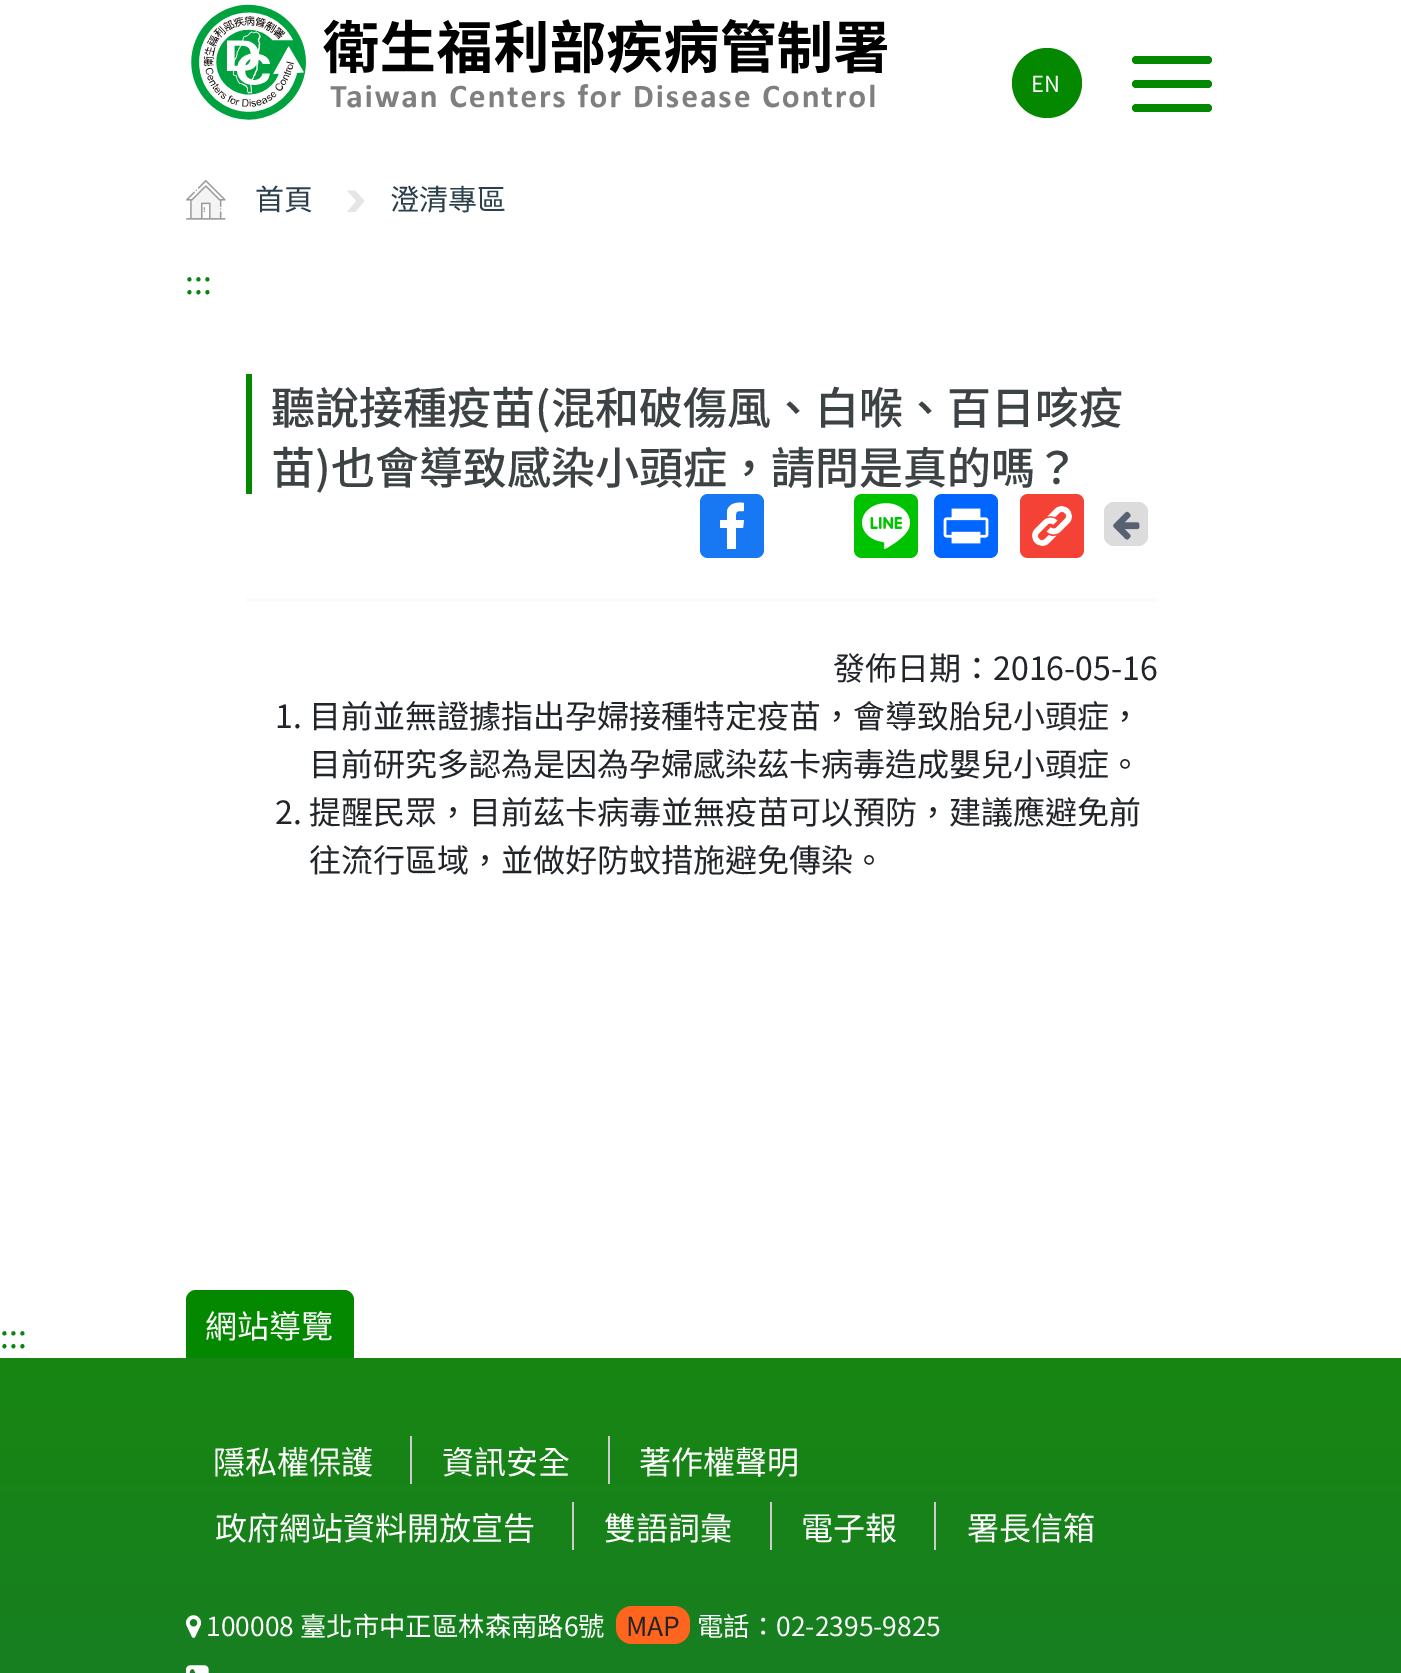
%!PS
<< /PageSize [1401 1673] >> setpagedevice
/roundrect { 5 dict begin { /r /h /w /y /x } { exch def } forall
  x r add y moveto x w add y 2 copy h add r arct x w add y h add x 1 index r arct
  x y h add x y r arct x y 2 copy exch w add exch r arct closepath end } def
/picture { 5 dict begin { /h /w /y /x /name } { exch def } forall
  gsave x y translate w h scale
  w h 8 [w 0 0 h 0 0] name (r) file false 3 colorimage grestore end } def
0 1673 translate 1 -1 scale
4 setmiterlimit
1 setgray
0 0 1401 1673 rectfill
(img1.rgb) 191 4 696 116 picture
0.016 0.533 0 setrgbcolor
newpath 1047 83 35 0 360 arc closepath fill
/NotoSansTC-Regular [22 0 0 -22 0 0] selectfont
1 setgray
1031 92 moveto (EN) show
0.016 0.533 0 setrgbcolor
1132 56 80 8 4 roundrect fill
1132 80 80 8 4 roundrect fill
1132 104 80 8 4 roundrect fill
(img2.rgb) 186 180 40 40 picture
/NotoSansTC-Regular [29 0 0 -29 0 0] selectfont
0.173 0.247 0.298 setrgbcolor
255 210 moveto (首頁) show
0.898 setgray
newpath 355 190.5 moveto 347 190.5 lineto 356.5 201 lineto 347 212 lineto 355 212 lineto 364.5 201 lineto closepath fill
0.173 0.247 0.298 setrgbcolor
390 210 moveto (澄清專區) show
/NotoSansTC-Regular [32 0 0 -32 0 0] selectfont
0.024 0.522 0.067 setrgbcolor
185 294 moveto (:::) show
0.016 0.533 0 setrgbcolor
246 374 6 120 rectfill
/NotoSansTC-Medium [44 0 0 -44 0 0] selectfont
0.239 0.259 0.271 setrgbcolor
271 424 moveto (聽說接種疫苗\(混和破傷風、白喉、百日咳疫) show
271 484 moveto (苗\)也會導致感染小頭症，請問是真的嗎？) show
0.094 0.467 0.949 setrgbcolor
700 494 64 64 8 roundrect fill
1 setgray
newpath 736 549 moveto 736 528 lineto 743 528 lineto 744 520 lineto 736 520 lineto 736 511 735 511 744 511 curveto 744 503 lineto 737 502 729 503 727 511 curveto 727 520 lineto 720 520 lineto 720 528 lineto 727 528 lineto 727 549 lineto closepath fill
0 0.765 0 setrgbcolor
854 494 64 64 8 roundrect fill
(img3.rgb) 862 503 48 46 picture
0.004 0.4 1 setrgbcolor
934 494 64 64 8 roundrect fill
(img4.rgb) 943 508 46 36 picture
0.957 0.263 0.212 setrgbcolor
1020 494 64 64 8 roundrect fill
(img5.rgb) 1032 506 40 40 picture
0.863 setgray
1104 502 44 44 10 roundrect fill
(img6.rgb) 1113 511 27 29 picture
0.984 setgray
246 598 912 4 rectfill
/NotoSansTC-Regular [32 0 0 -32 0 0] selectfont
0.129 0.145 0.161 setrgbcolor
833 680 moveto (發佈日期：2016-05-16) show
275 728 moveto (1. 目前並無證據指出孕婦接種特定疫苗，會導致胎兒小頭症，) show
309 776 moveto (目前研究多認為是因為孕婦感染茲卡病毒造成嬰兒小頭症。) show
275 824 moveto (2. 提醒民眾，目前茲卡病毒並無疫苗可以預防，建議應避免前) show
309 872 moveto (往流行區域，並做好防蚊措施避免傳染。) show
0.024 0.522 0.067 setrgbcolor
0 1348 moveto (:::) show
0.016 0.533 0 setrgbcolor
newpath 196 1290 moveto 344 1290 lineto 349.5 1290 354 1294.5 354 1300 curveto 354 1358 lineto 186 1358 lineto 186 1300 lineto 186 1294.5 190.5 1290 196 1290 curveto closepath fill
1 setgray
205 1338 moveto (網站導覽) show
gsave newpath 0 1358 moveto 1401 1358 lineto 1401 1673 lineto 0 1673 lineto closepath clip newpath
<< /ShadingType 2 /ColorSpace /DeviceRGB /Coords [701 1358 701 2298] /Extend [true true] /Function << /FunctionType 2 /Domain [0 1] /C0 [0.094 0.525 0.071] /C1 [0.078 0.447 0.243] /N 1 >> >> shfill grestore
213 1474 moveto (隱私權保護) show
442 1474 moveto (資訊安全) show
0.8 setgray
410 1436 2 48 rectfill
1 setgray
639 1474 moveto (著作權聲明) show
0.8 setgray
608 1436 2 48 rectfill
1 setgray
215 1540 moveto (政府網站資料開放宣告) show
604 1540 moveto (雙語詞彙) show
0.8 setgray
572 1502 2 48 rectfill
1 setgray
801 1540 moveto (電子報) show
0.8 setgray
770 1502 2 48 rectfill
1 setgray
967 1540 moveto (署長信箱) show
0.8 setgray
934 1502 2 48 rectfill
(img7.rgb) 186 1615 16 23 picture
/NotoSansTC-Regular [26.4 0 0 -26.4 0 0] selectfont
1 setgray
206 1636 moveto (100008 臺北市中正區林森南路6號) show
1 0.396 0.122 setrgbcolor
616 1606 74 38 16 roundrect fill
0.141 0.137 0.137 setrgbcolor
626 1636 moveto (MAP) show
1 setgray
697 1636 moveto (電話：02-2395-9825) show
(img8.rgb) 186 1665 23 8 picture
showpage
